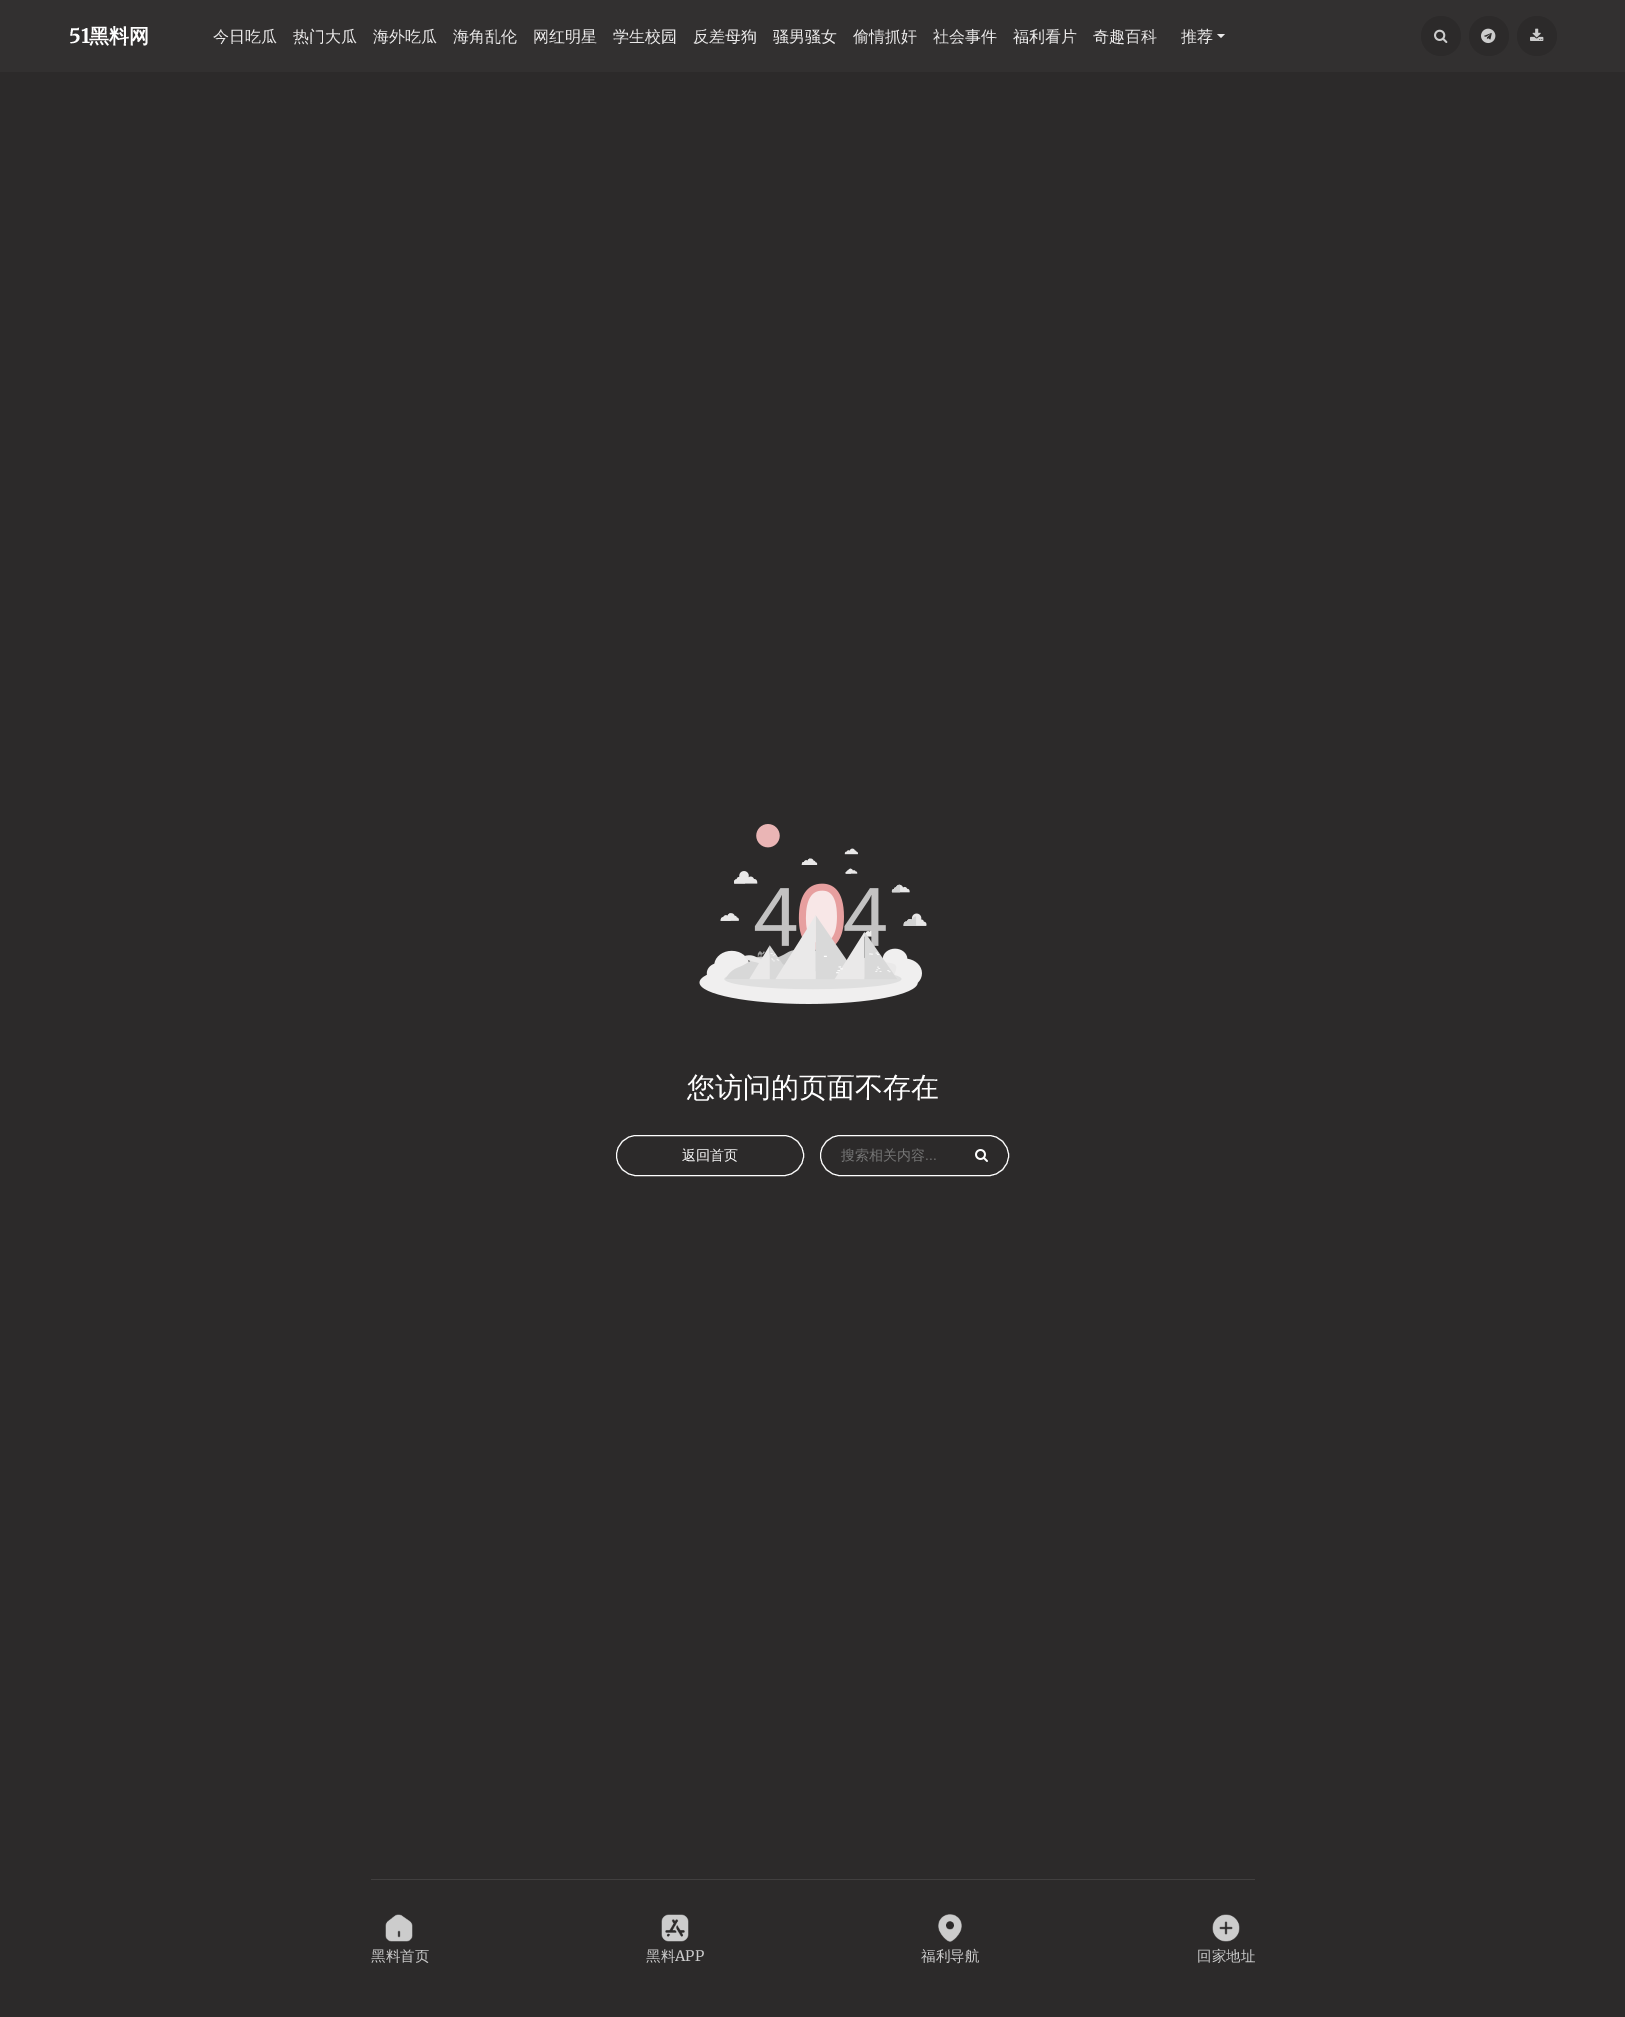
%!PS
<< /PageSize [1625 2017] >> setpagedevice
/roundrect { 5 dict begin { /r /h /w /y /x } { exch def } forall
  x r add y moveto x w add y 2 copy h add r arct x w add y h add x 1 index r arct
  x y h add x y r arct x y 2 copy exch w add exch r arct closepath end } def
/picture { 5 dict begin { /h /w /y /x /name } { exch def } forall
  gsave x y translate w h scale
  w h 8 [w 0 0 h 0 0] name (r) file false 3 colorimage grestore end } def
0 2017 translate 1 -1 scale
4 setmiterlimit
0.173 0.165 0.165 setrgbcolor
0 0 1625 2017 rectfill
0.196 0.188 0.188 setrgbcolor
0 0 1625 72 rectfill
/Merriweather-Bold [20 0 0 -20 0 0] selectfont
1 setgray
69 43 moveto (51) show
/WenQuanYiZenHei-Bold [20 0 0 -20 0 0] selectfont
89 43 moveto (黑料网) show
/WenQuanYiZenHei-Medium [16 0 0 -16 0 0] selectfont
0.922 0.918 0.918 setrgbcolor
213 42 moveto (今日吃瓜) show
293 42 moveto (热门大瓜) show
373 42 moveto (海外吃瓜) show
453 42 moveto (海角乱伦) show
533 42 moveto (网红明星) show
613 42 moveto (学生校园) show
693 42 moveto (反差母狗) show
773 42 moveto (骚男骚女) show
853 42 moveto (偷情抓奸) show
933 42 moveto (社会事件) show
1013 42 moveto (福利看片) show
1093 42 moveto (奇趣百科) show
1181 42 moveto (推荐) show
newpath 1217 34 moveto 1225 34 lineto 1221 38 lineto closepath fill
0.173 0.165 0.165 setrgbcolor
newpath 1441 36 20 0 360 arc closepath fill
(img1.rgb) 1434 29 14 14 picture
newpath 1489 36 20 0 360 arc closepath fill
(img2.rgb) 1481 28 15 16 picture
newpath 1537 36 20 0 360 arc closepath fill
(img3.rgb) 1530 28 14 13 picture
(img4.rgb) 699 824 228 180 picture
/WenQuanYiZenHei-Medium [28 0 0 -28 0 0] selectfont
1 setgray
687 1097 moveto (您访问的页面不存在) show
616.5 1135.5 187 40 20 roundrect stroke
/WenQuanYiZenHei-Medium [14 0 0 -14 0 0] selectfont
682 1160 moveto (返回首页) show
820.5 1135.5 188 40 20 roundrect stroke
0.459 setgray
841 1160 moveto (搜索相关内容) show
/LiberationSans-Regular [14 0 0 -14 0 0] selectfont
925 1160 moveto (...) show
(img5.rgb) 975 1149 13 13 picture
0.255 0.247 0.247 setrgbcolor
371 1879 884 1 rectfill
(img6.rgb) 385 1914 28 28 picture
/WenQuanYiZenHei-Medium [14.5 0 0 -14.5 0 0] selectfont
0.8 setgray
371 1961 moveto (黑料首页) show
(img7.rgb) 661 1914 28 28 picture
646 1961 moveto (黑料) show
/Merriweather-Regular [14.5 0 0 -14.5 0 0] selectfont
675 1961 moveto (APP) show
(img8.rgb) 938 1914 24 28 picture
/WenQuanYiZenHei-Medium [14.5 0 0 -14.5 0 0] selectfont
921 1961 moveto (福利导航) show
(img9.rgb) 1212 1914 28 28 picture
1197 1961 moveto (回家地址) show
showpage
